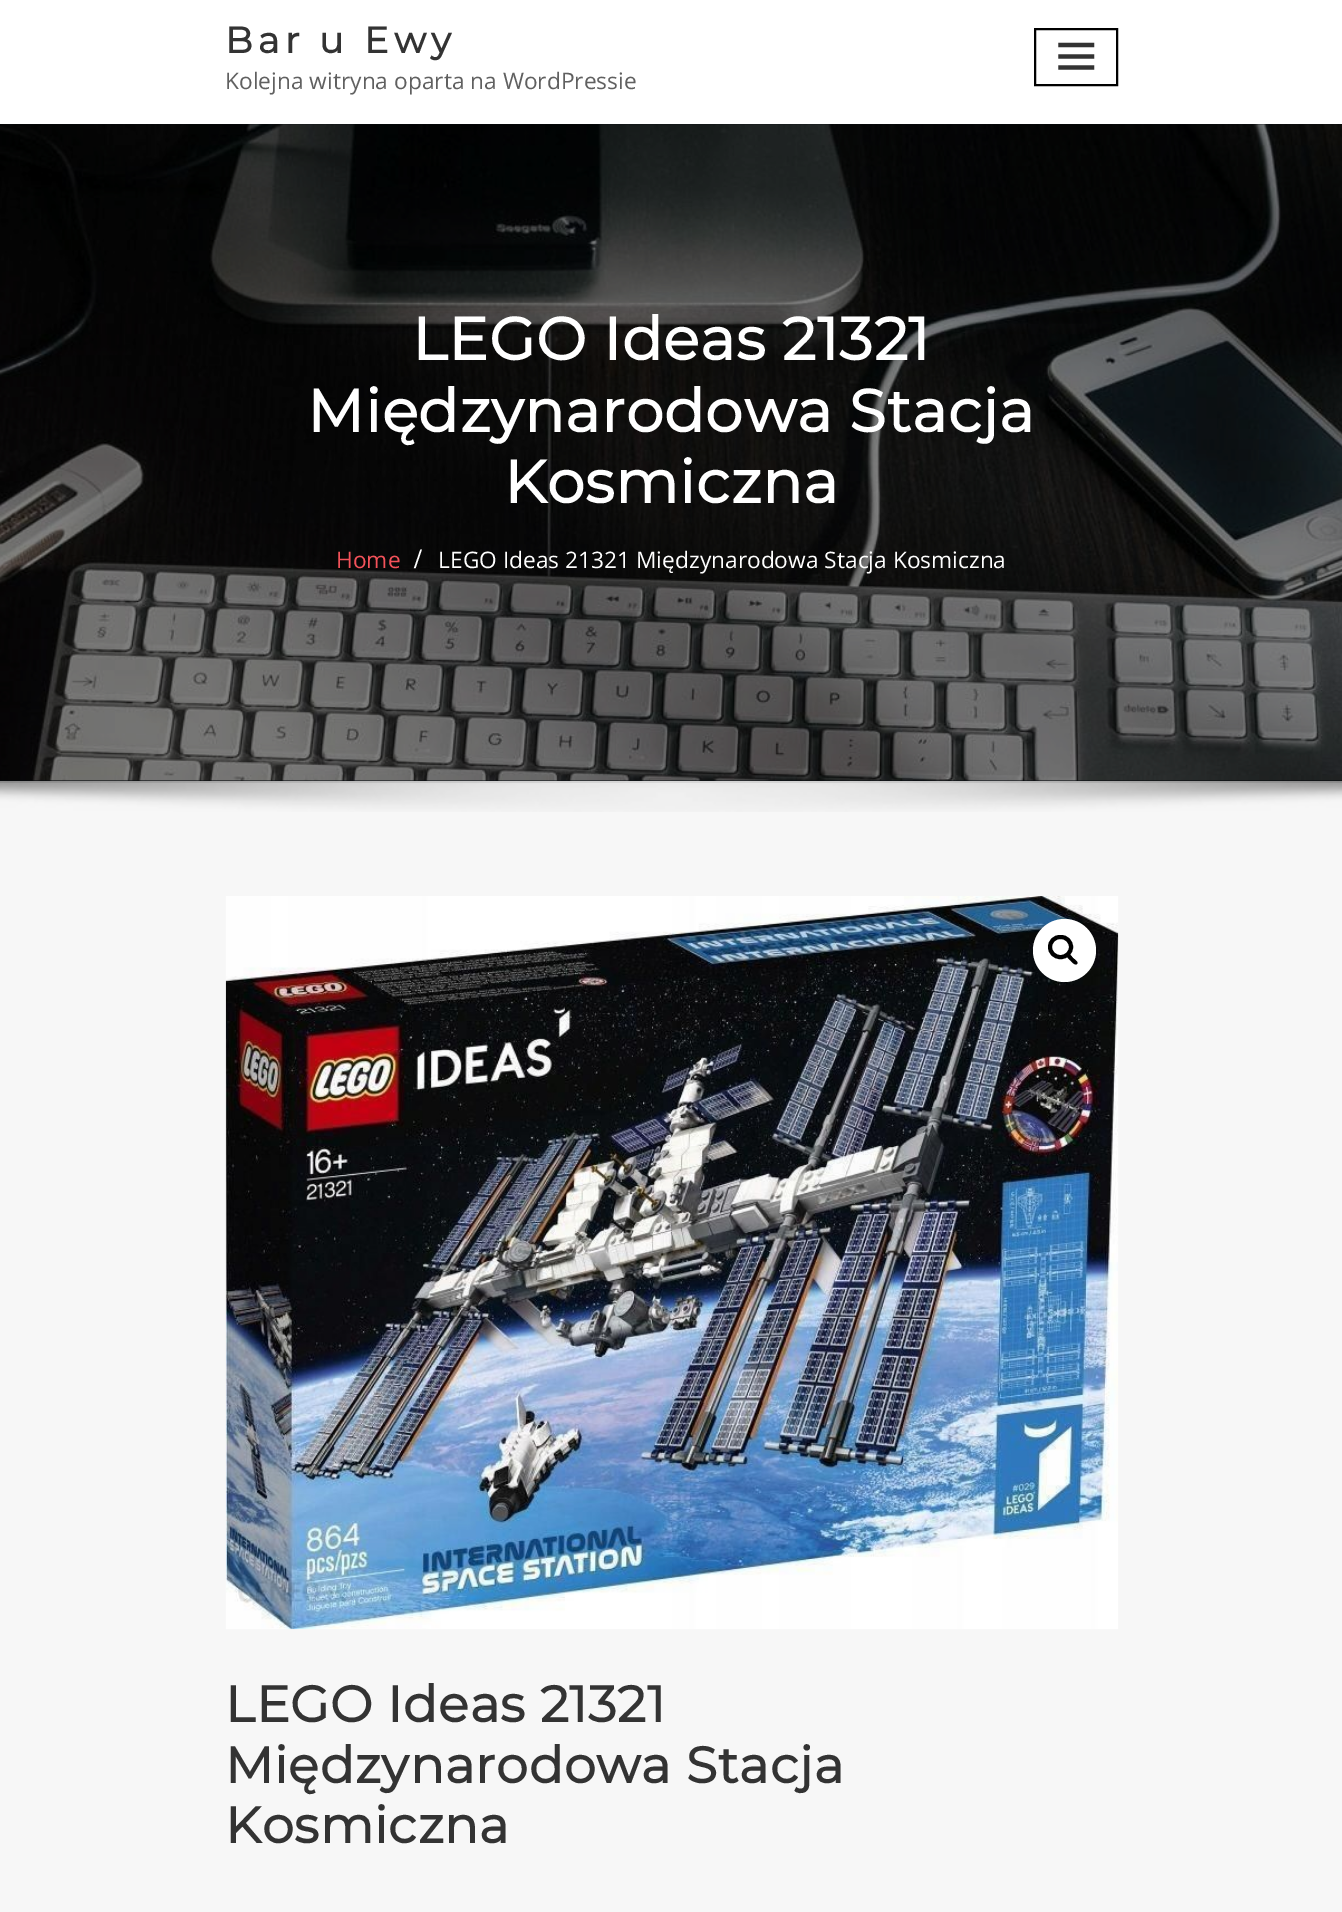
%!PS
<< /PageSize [1342 1912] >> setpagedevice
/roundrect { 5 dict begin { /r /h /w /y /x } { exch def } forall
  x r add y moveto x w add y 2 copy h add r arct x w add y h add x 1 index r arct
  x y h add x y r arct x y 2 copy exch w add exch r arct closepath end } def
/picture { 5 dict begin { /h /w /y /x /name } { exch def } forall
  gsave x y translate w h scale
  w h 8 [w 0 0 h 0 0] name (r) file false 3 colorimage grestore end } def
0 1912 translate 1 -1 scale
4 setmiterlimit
1 setgray
0 0 1342 1912 rectfill
/Montserrat-Bold [36.5 0 0 -36.5 0 0] selectfont
0.2 setgray
225 53 moveto 5.25 0 (Bar u Ewy) ashow
/OpenSans-Regular [22.75 0 0 -22.75 0 0] selectfont
0.376 setgray
225 89 moveto (Kolejna witryna oparta na WordPressie) show
0 setgray
2 setlinewidth
1035 29 82 56 rectstroke
0.2 setgray
4.3 setlinewidth
2 setlinecap
newpath 1060.5 45 moveto 1092 45 lineto 1060.5 56.5 moveto 1092 56.5 lineto 1060.5 67.5 moveto 1092 67.5 lineto stroke
0.047 0.067 0.086 setrgbcolor
0 124 1342 657 rectfill
(img1.rgb) 0 124 1342 657 picture
/Montserrat-Bold [59.75 0 0 -59.75 0 0] selectfont
1 setgray
412 360 moveto 0.75 0 (LEGO Ideas 21321) ashow
307 432 moveto 0.75 0 (Międzynarodowa Stacja) ashow
504 503 moveto 0.75 0 (Kosmiczna) ashow
/OpenSans-Regular [22.75 0 0 -22.75 0 0] selectfont
0.953 0.322 0.353 setrgbcolor
336 568 moveto (Home) show
/LiberationSerif-Bold [28 0 0 -28 0 0] selectfont
1 setgray
414 568 moveto 2 0 (/) ashow
/OpenSans-Regular [22.75 0 0 -22.75 0 0] selectfont
438 568 moveto (LEGO Ideas 21321 Międzynarodowa Stacja Kosmiczna) show
0.969 setgray
0 783 1342 1129 rectfill
0.894 setgray
0 781 1342 2 rectfill
(img2.rgb) 0 780 1342 32 picture
(img3.rgb) 225 896 894 734 picture
1 setgray
newpath 1064.5 950.5 31.5 0 360 arc closepath fill
0 setgray
4 setlinewidth
0 setlinecap
1050 937 21 20 10 roundrect stroke
newpath 1067 954 moveto 1069 952 1072 957 1073 958 curveto 1074 959 1079 962 1077 964 curveto 1075 966 1071.5 961.5 1070.5 960.5 curveto 1069.5 959.5 1065 956 1067 954 curveto closepath fill
/Montserrat-Bold [50.6 0 0 -50.6 0 0] selectfont
0.2 setgray
225 1722 moveto 0.75 0 (LEGO Ideas 21321) ashow
225 1783 moveto 0.75 0 (Międzynarodowa Stacja) ashow
225 1843 moveto 0.75 0 (Kosmiczna) ashow
showpage
